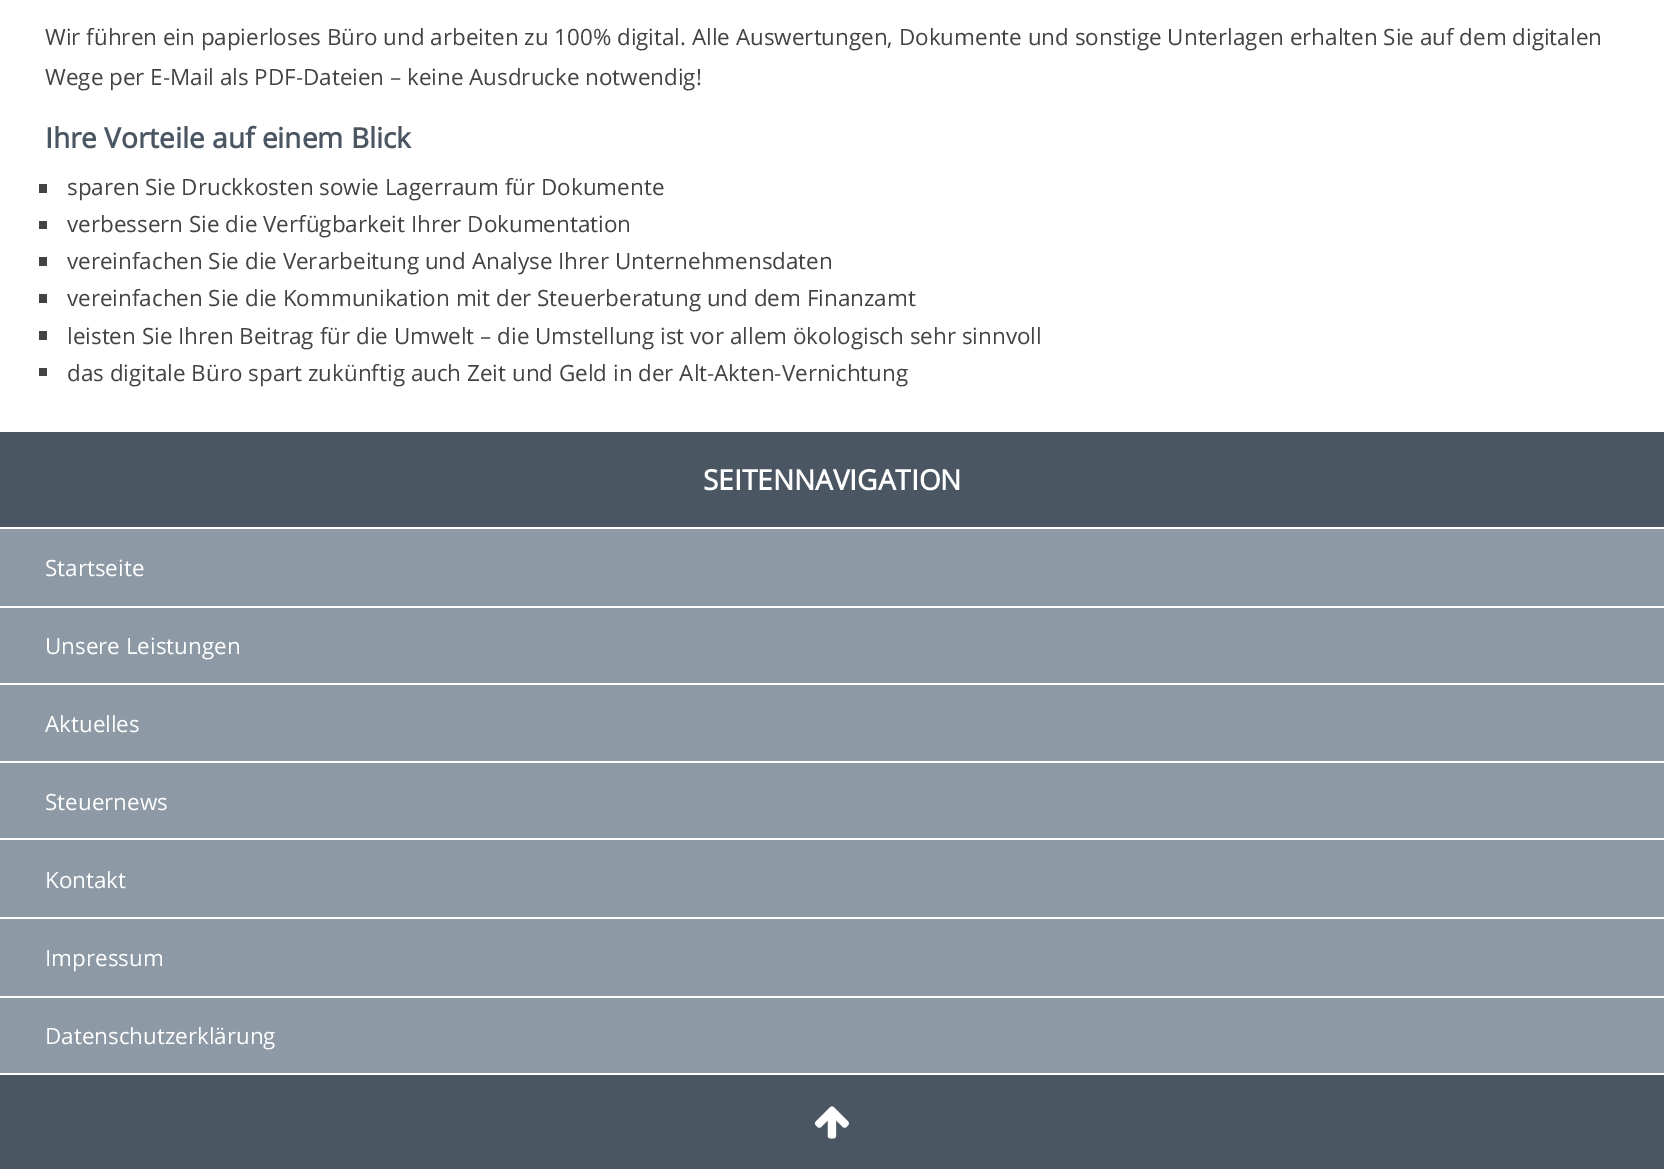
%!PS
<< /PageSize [1664 1169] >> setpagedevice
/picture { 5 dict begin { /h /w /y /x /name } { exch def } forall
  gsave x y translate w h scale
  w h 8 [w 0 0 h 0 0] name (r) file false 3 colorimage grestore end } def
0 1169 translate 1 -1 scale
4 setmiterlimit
1 setgray
0 0 1664 1169 rectfill
/OpenSans-Regular [22.4 0 0 -22.4 0 0] selectfont
0.263 setgray
45 45 moveto (Wir führen ein papierloses Büro und arbeiten zu 100% digital. Alle Auswertungen, Dokumente und sonstige Unterlagen erhalten Sie auf dem digitalen) show
45 85 moveto (Wege per E-Mail als PDF-Dateien – keine Ausdrucke notwendig!) show
/OpenSans-Bold [28 0 0 -28 0 0] selectfont
0.29 0.337 0.384 setrgbcolor
45 148 moveto (Ihre Vorteile auf einem Blick) show
0.263 setgray
39 184 8 9 rectfill
/OpenSans-Regular [22.4 0 0 -22.4 0 0] selectfont
67 195 moveto (sparen Sie Druckkosten sowie Lagerraum für Dokumente) show
39 221 8 8 rectfill
67 232 moveto (verbessern Sie die Verfügbarkeit Ihrer Dokumentation) show
39 257 8 9 rectfill
67 269 moveto (vereinfachen Sie die Verarbeitung und Analyse Ihrer Unternehmensdaten) show
39 294 8 9 rectfill
67 306 moveto (vereinfachen Sie die Kommunikation mit der Steuerberatung und dem Finanzamt) show
39 331 8 9 rectfill
67 344 moveto (leisten Sie Ihren Beitrag für die Umwelt – die Umstellung ist vor allem ökologisch sehr sinnvoll) show
39 368 8 8 rectfill
67 381 moveto (das digitale Büro spart zukünftig auch Zeit und Geld in der Alt-Akten-Vernichtung) show
0.29 0.337 0.384 setrgbcolor
0 432 1664 95 rectfill
/OpenSans-Bold [28 0 0 -28 0 0] selectfont
1 setgray
703 490 moveto (SEITENNAVIGATION) show
0.553 0.6 0.647 setrgbcolor
0 529 1664 77 rectfill
/OpenSans-Regular [22.4 0 0 -22.4 0 0] selectfont
1 setgray
45 576 moveto (Startseite) show
0.553 0.6 0.647 setrgbcolor
0 608 1664 75 rectfill
1 setgray
45 654 moveto (Unsere Leistungen) show
0.553 0.6 0.647 setrgbcolor
0 685 1664 76 rectfill
1 setgray
45 732 moveto (Aktuelles) show
0.553 0.6 0.647 setrgbcolor
0 763 1664 75 rectfill
1 setgray
45 810 moveto (Steuernews) show
0.553 0.6 0.647 setrgbcolor
0 840 1664 77 rectfill
1 setgray
45 888 moveto (Kontakt) show
0.553 0.6 0.647 setrgbcolor
0 919 1664 77 rectfill
1 setgray
45 966 moveto (Impressum) show
0.553 0.6 0.647 setrgbcolor
0 998 1664 75 rectfill
1 setgray
45 1044 moveto (Datenschutzerklärung) show
0.29 0.337 0.384 setrgbcolor
0 1075 1664 94 rectfill
(img1.rgb) 814 1106 35 33 picture
showpage
